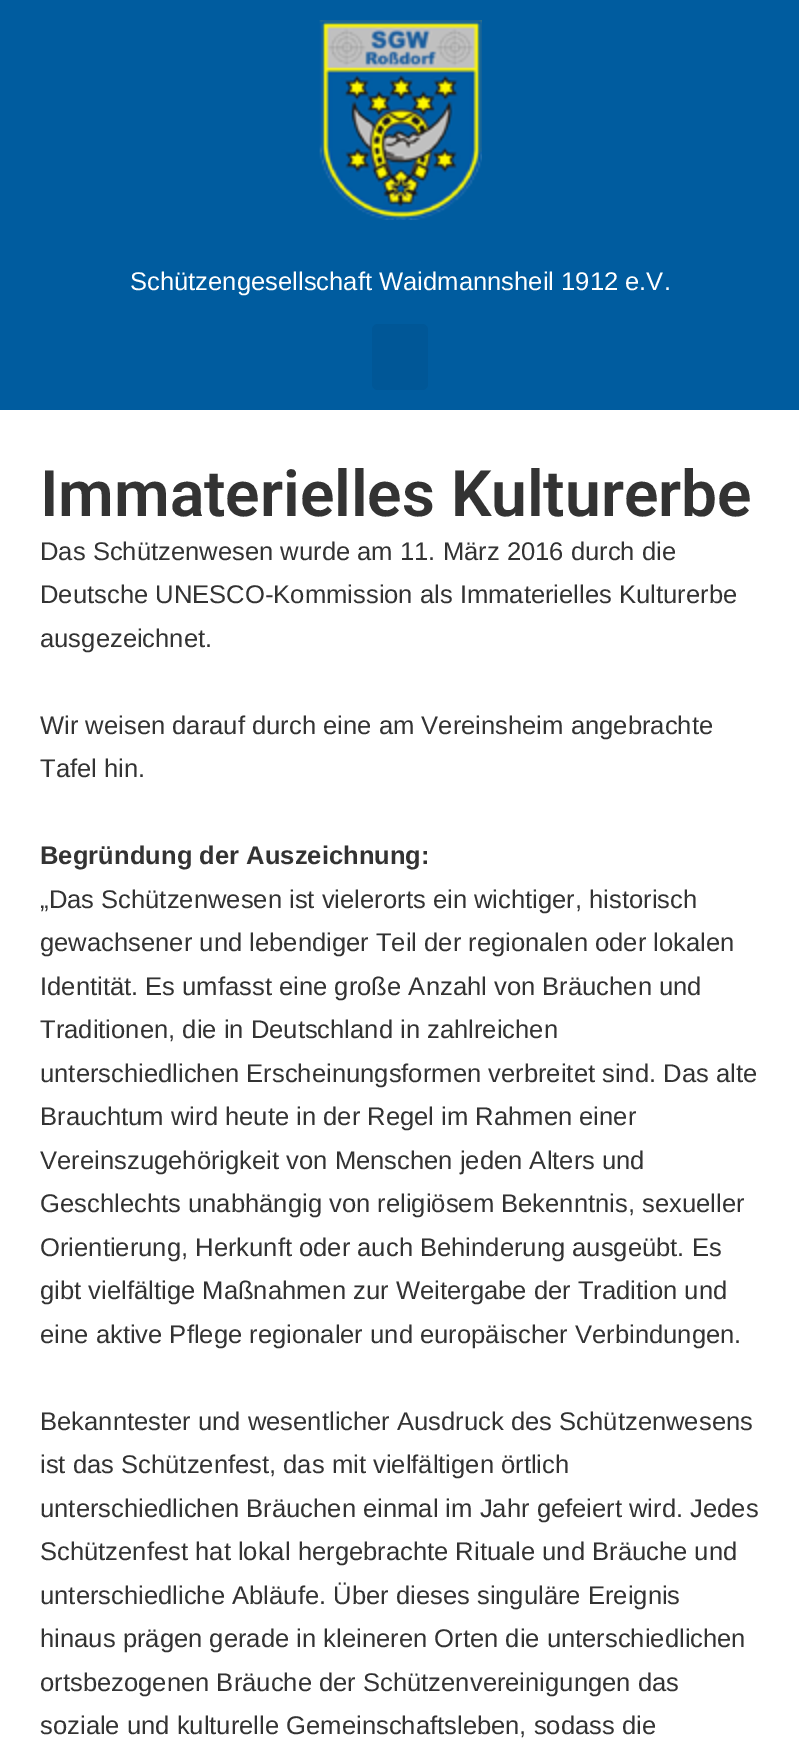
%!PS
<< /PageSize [799 1760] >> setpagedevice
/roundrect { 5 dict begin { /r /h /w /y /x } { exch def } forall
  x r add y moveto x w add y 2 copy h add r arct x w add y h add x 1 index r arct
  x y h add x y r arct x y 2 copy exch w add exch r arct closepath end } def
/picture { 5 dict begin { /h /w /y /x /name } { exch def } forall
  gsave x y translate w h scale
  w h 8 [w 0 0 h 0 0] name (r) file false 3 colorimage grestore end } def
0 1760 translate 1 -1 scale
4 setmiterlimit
1 setgray
0 0 799 1760 rectfill
0 0.361 0.624 setrgbcolor
0 0 799 410 rectfill
(img1.rgb) 319 20 163 200 picture
/LiberationSans-Regular [25.6 0 0 -25.6 0 0] selectfont
1 setgray
130 290 moveto (Schützengesellschaft Waidmannsheil 1912 e.V.) show
0 0.341 0.592 setrgbcolor
372 324 56 66 6 roundrect fill
/Roboto-SemiBold [64 0 0 -64 0 0] selectfont
0.2 setgray
40 516 moveto (Immaterielles Kulturerbe) show
/LiberationSans-Regular [25.6 0 0 -25.6 0 0] selectfont
40 560 moveto (Das Schützenwesen wurde am 11. März 2016 durch die) show
40 603 moveto (Deutsche UNESCO-Kommission als Immaterielles Kulturerbe) show
40 647 moveto (ausgezeichnet.) show
40 734 moveto (Wir weisen darauf durch eine am Vereinsheim angebrachte) show
40 777 moveto (Tafel hin.) show
/LiberationSans-Bold [25.6 0 0 -25.6 0 0] selectfont
40 864 moveto (Begründung der Auszeichnung:) show
/LiberationSans-Regular [25.6 0 0 -25.6 0 0] selectfont
40 908 moveto („Das Schützenwesen ist vielerorts ein wichtiger, historisch) show
40 951 moveto (gewachsener und lebendiger Teil der regionalen oder lokalen) show
40 995 moveto (Identität. Es umfasst eine große Anzahl von Bräuchen und) show
40 1038 moveto (Traditionen, die in Deutschland in zahlreichen) show
40 1082 moveto (unterschiedlichen Erscheinungsformen verbreitet sind. Das alte) show
40 1125 moveto (Brauchtum wird heute in der Regel im Rahmen einer) show
40 1169 moveto (Vereinszugehörigkeit von Menschen jeden Alters und) show
40 1212 moveto (Geschlechts unabhängig von religiösem Bekenntnis, sexueller) show
40 1256 moveto (Orientierung, Herkunft oder auch Behinderung ausgeübt. Es) show
40 1299 moveto (gibt vielfältige Maßnahmen zur Weitergabe der Tradition und) show
40 1343 moveto (eine aktive Pflege regionaler und europäischer Verbindungen.) show
40 1430 moveto (Bekanntester und wesentlicher Ausdruck des Schützenwesens) show
40 1473 moveto (ist das Schützenfest, das mit vielfältigen örtlich) show
40 1517 moveto (unterschiedlichen Bräuchen einmal im Jahr gefeiert wird. Jedes) show
40 1560 moveto (Schützenfest hat lokal hergebrachte Rituale und Bräuche und) show
40 1604 moveto (unterschiedliche Abläufe. Über dieses singuläre Ereignis) show
40 1647 moveto (hinaus prägen gerade in kleineren Orten die unterschiedlichen) show
40 1691 moveto (ortsbezogenen Bräuche der Schützenvereinigungen das) show
40 1734 moveto (soziale und kulturelle Gemeinschaftsleben, sodass die) show
showpage
